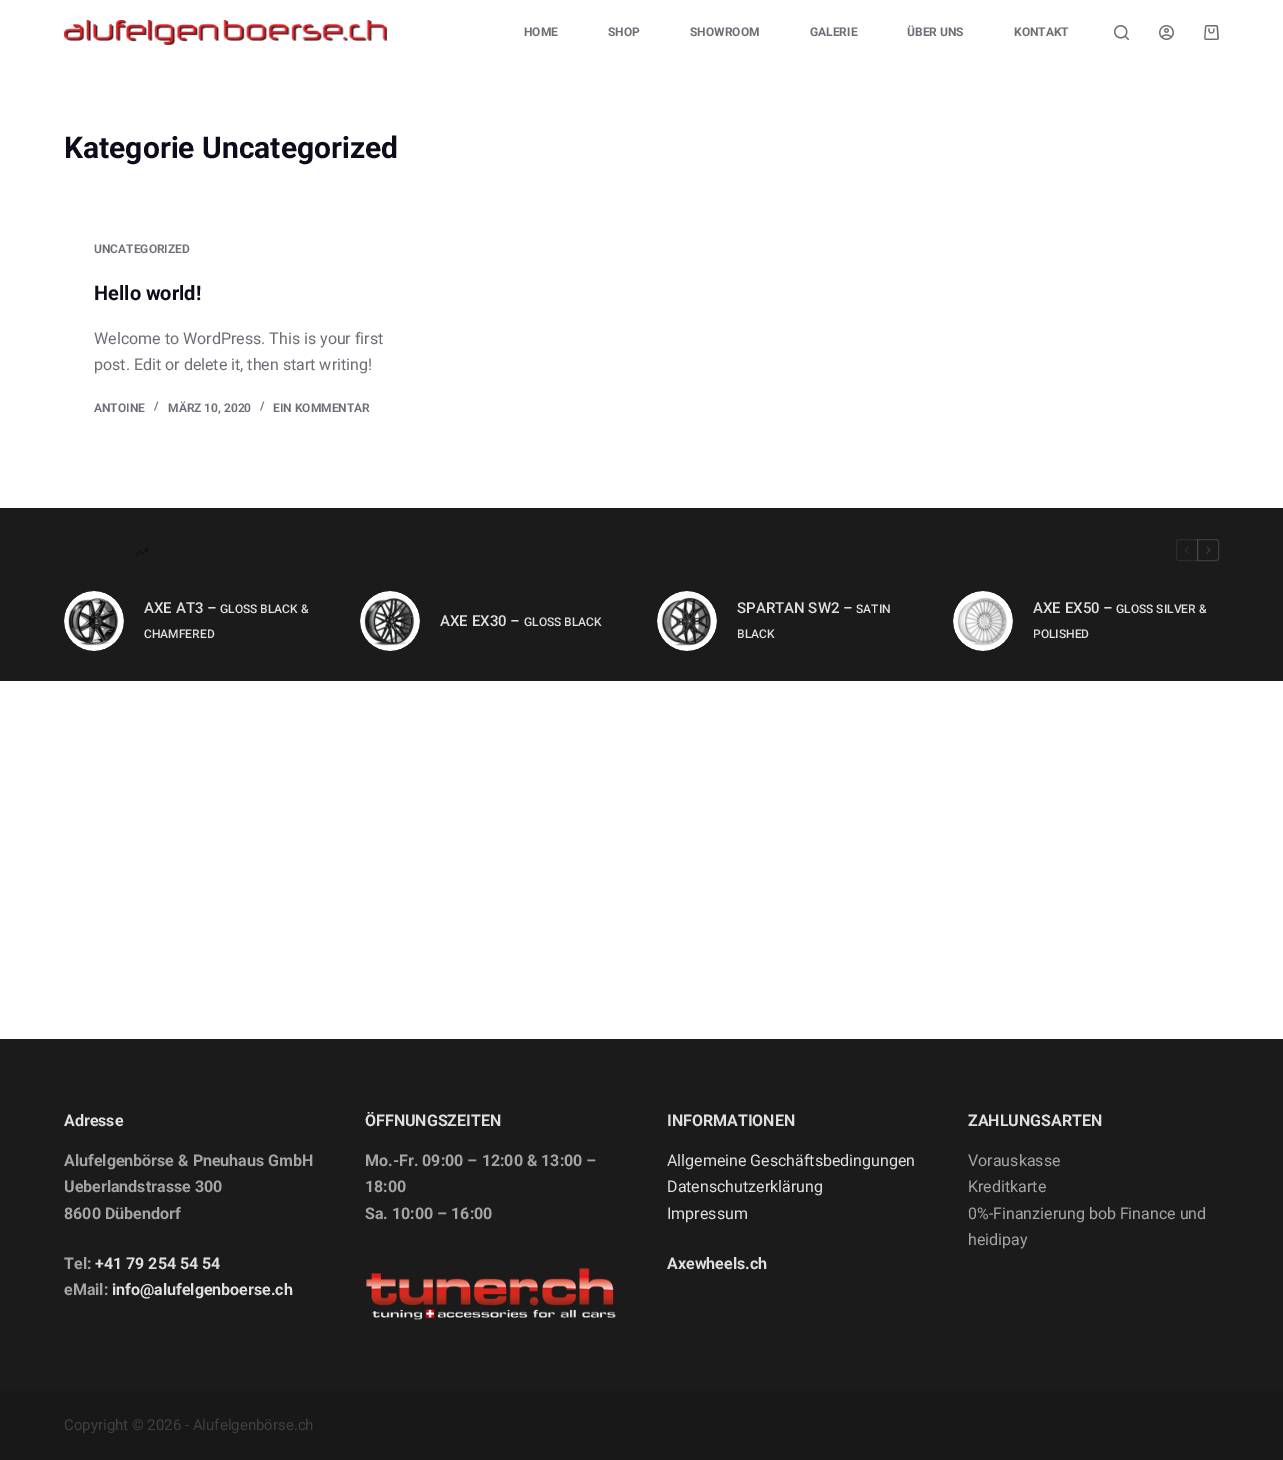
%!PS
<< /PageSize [1283 1460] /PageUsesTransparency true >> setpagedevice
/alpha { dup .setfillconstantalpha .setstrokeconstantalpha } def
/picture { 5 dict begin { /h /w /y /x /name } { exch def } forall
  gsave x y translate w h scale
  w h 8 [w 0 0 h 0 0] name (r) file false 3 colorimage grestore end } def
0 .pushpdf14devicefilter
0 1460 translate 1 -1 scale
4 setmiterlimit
1 setgray
0 0 1283 1460 rectfill
(img1.rgb) 64 20 323 25 picture
/Roboto-Bold [12 0 0 -12 0 0] selectfont
0.431 0.427 0.463 setrgbcolor
524 36 moveto (HOME) show
608 36 moveto (SHOP) show
690 36 moveto (SHOWROOM) show
810 36 moveto (GALERIE) show
907 36 moveto (ÜBER UNS) show
1014 36 moveto (KONTAKT) show
(img2.rgb) 1114 25 15 15 picture
(img3.rgb) 1159 25 15 15 picture
(img4.rgb) 1204 25 15 15 picture
/Roboto-Bold [30 0 0 -30 0 0] selectfont
0.055 0.047 0.106 setrgbcolor
64 158 moveto (Kategorie Uncategorized) show
/Roboto-SemiBold [12 0 0 -12 0 0] selectfont
0.431 0.427 0.463 setrgbcolor
94 253 moveto (UNCATEGORIZED) show
/Roboto-Bold [20 0 0 -20 0 0] selectfont
0.055 0.047 0.106 setrgbcolor
94 300 moveto (Hello world!) show
/Roboto-Regular [16 0 0 -16 0 0] selectfont
0.431 0.427 0.463 setrgbcolor
94 344 moveto (Welcome to WordPress. This is your first) show
94 370 moveto (post. Edit or delete it, then start writing!) show
/Roboto-SemiBold [12 0 0 -12 0 0] selectfont
94 412 moveto (ANTOINE) show
154 410 moveto (/) show
168 412 moveto (MÄRZ 10, 2020) show
260 410 moveto (/) show
273 412 moveto (EIN KOMMENTAR) show
0.106 setgray
0 508 1283 173 rectfill
(img5.rgb) 135 548 13 8 picture
0.173 0.169 0.176 setrgbcolor
newpath 1179 539.5 moveto 1197.5 539.5 lineto 1197.5 560.5 lineto 1179 560.5 lineto 1177.5 560.5 1176.5 559.5 1176.5 558 curveto 1176.5 542 lineto 1176.5 540.5 1177.5 539.5 1179 539.5 curveto closepath stroke
(img6.rgb) 1184 546 5 8 picture
0.4 alpha
0.431 0.427 0.463 setrgbcolor
newpath 1197.5 539.5 moveto 1216 539.5 lineto 1217.5 539.5 1218.5 540.5 1218.5 542 curveto 1218.5 558 lineto 1218.5 559.5 1217.5 560.5 1216 560.5 curveto 1197.5 560.5 lineto closepath stroke
1 alpha
(img7.rgb) 1206 546 5 8 picture
(img8.rgb) 64 591 60 60 picture
/Roboto-Medium [15 0 0 -15 0 0] selectfont
0.875 0.875 0.886 setrgbcolor
144 613 moveto (AXE AT3 –) show
/Roboto-Medium [12 0 0 -12 0 0] selectfont
220 613 moveto (GLOSS BLACK &) show
144 638 moveto (CHAMFERED) show
(img9.rgb) 360 591 60 60 picture
/Roboto-Medium [15 0 0 -15 0 0] selectfont
440 626 moveto (AXE EX30 –) show
/Roboto-Medium [12 0 0 -12 0 0] selectfont
524 626 moveto (GLOSS BLACK) show
(img10.rgb) 657 591 60 60 picture
/Roboto-Medium [15 0 0 -15 0 0] selectfont
737 613 moveto (SPARTAN SW2 –) show
/Roboto-Medium [12 0 0 -12 0 0] selectfont
856 613 moveto (SATIN) show
737 638 moveto (BLACK) show
(img11.rgb) 953 591 60 60 picture
/Roboto-Medium [15 0 0 -15 0 0] selectfont
1033 613 moveto (AXE EX50 –) show
/Roboto-Medium [12 0 0 -12 0 0] selectfont
1116 613 moveto (GLOSS SILVER &) show
1033 638 moveto (POLISHED) show
0.106 setgray
0 1039 1283 352 rectfill
/Roboto-Bold [16 0 0 -16 0 0] selectfont
0.875 0.875 0.886 setrgbcolor
64 1126 moveto (Adresse) show
0.643 setgray
64 1166 moveto (Alufelgenbörse & Pneuhaus GmbH) show
64 1192 moveto (Ueberlandstrasse 300) show
64 1219 moveto (8600 Dübendorf) show
64 1269 moveto (Tel:) show
0.875 0.875 0.886 setrgbcolor
95 1269 moveto (+41 79 254 54 54) show
0.643 setgray
64 1295 moveto (eMail:) show
0.875 0.875 0.886 setrgbcolor
112 1295 moveto (info@alufelgenboerse.ch) show
365 1126 moveto (ÖFFNUNGSZEITEN) show
0.643 setgray
365 1166 moveto (Mo.-Fr. 09:00 – 12:00 & 13:00 –) show
365 1192 moveto (18:00) show
365 1219 moveto (Sa. 10:00 – 16:00) show
(img12.rgb) 365 1267 251 53 picture
0.875 0.875 0.886 setrgbcolor
667 1126 moveto (INFORMATIONEN) show
/Roboto-Regular [16 0 0 -16 0 0] selectfont
667 1166 moveto (Allgemeine Geschäftsbedingungen) show
667 1192 moveto (Datenschutzerklärung) show
667 1219 moveto (Impressum) show
/Roboto-Bold [16 0 0 -16 0 0] selectfont
667 1269 moveto (Axewheels.ch) show
968 1126 moveto (ZAHLUNGSARTEN) show
/Roboto-Regular [16 0 0 -16 0 0] selectfont
0.643 setgray
968 1166 moveto (Vorauskasse) show
968 1192 moveto (Kreditkarte) show
968 1219 moveto (0%-Finanzierung bob Finance und) show
968 1245 moveto (heidipay) show
0.094 setgray
0 1391 1283 69 rectfill
/Roboto-Regular [15 0 0 -15 0 0] selectfont
0.247 setgray
64 1430 moveto (Copyright © 2026 - Alufelgenbörse.ch) show
.poppdf14devicefilter showpage
